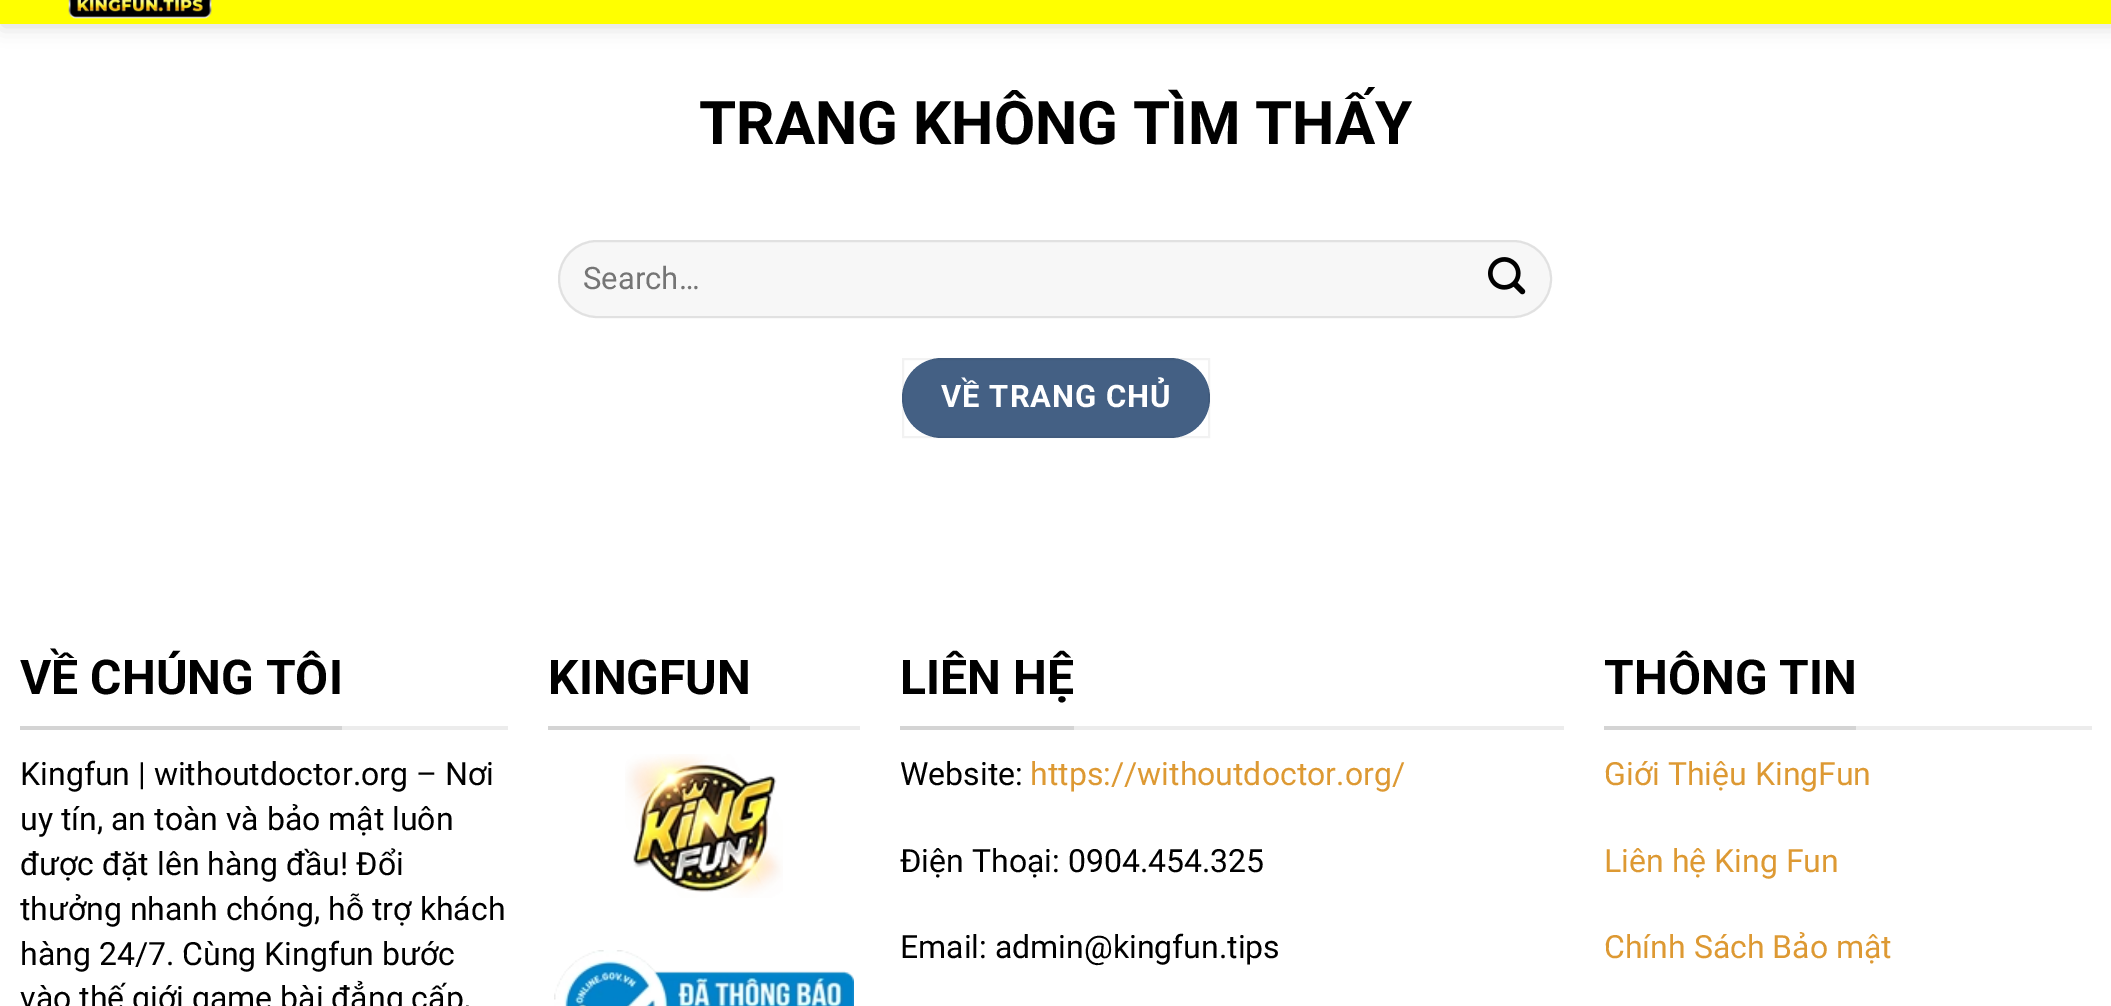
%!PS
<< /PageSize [2111 1006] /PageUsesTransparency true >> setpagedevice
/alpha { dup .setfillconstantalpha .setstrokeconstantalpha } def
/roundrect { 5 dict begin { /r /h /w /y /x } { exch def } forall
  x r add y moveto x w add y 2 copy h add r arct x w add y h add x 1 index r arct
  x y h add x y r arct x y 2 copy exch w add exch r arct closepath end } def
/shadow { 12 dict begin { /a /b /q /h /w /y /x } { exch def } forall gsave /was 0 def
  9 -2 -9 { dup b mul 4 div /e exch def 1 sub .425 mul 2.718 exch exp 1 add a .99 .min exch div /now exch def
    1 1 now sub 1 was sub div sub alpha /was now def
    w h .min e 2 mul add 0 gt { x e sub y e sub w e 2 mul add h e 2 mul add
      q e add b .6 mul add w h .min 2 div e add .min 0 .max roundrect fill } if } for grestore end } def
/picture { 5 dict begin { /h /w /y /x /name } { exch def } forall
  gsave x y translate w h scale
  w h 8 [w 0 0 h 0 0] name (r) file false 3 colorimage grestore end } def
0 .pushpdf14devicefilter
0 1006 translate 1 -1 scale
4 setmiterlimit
1 setgray
0 0 2111 1006 rectfill
0 setgray
2 -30 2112 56 0 10 0.15 shadow
1 1 0 setrgbcolor
0 0 2111 24 rectfill
(img1.rgb) 68 0 144 19 picture
/Roboto-Bold [60 0 0 -60 0 0] selectfont
0 setgray
699 144 moveto (TRANG KHÔNG TÌM THẤY) show
0.969 setgray
558 240 994 78 39 roundrect fill
0.09 alpha
0 setgray
2 setlinewidth
559 241 992 76 38 roundrect stroke
/Roboto-Regular [31 0 0 -31 0 0] selectfont
1 alpha
0.459 setgray
583 289 moveto (Search…) show
(img2.rgb) 1488 257 38 38 picture
0.267 0.376 0.518 setrgbcolor
902 358 308 80 40 roundrect fill
0.05 alpha
0 setgray
903 359 306 78 rectstroke
/Roboto-Bold [31 0 0 -31 0 0] selectfont
1 alpha
1 setgray
941 407 moveto 1 0 (VỀ TRANG CHỦ) ashow
0.925 setgray
342 726 166 4 rectfill
0.831 setgray
20 726 322 4 rectfill
/Roboto-Bold [48 0 0 -48 0 0] selectfont
0 setgray
20 694 moveto (VỀ CHÚNG TÔI) show
/Roboto-Regular [32 0 0 -32 0 0] selectfont
20 785 moveto (Kingfun | withoutdoctor.org – Nơi) show
20 830 moveto (uy tín, an toàn và bảo mật luôn) show
20 875 moveto (được đặt lên hàng đầu! Đổi) show
20 920 moveto (thưởng nhanh chóng, hỗ trợ khách) show
20 965 moveto (hàng 24/7. Cùng Kingfun bước) show
20 1009 moveto (vào thế giới game bài đẳng cấp,) show
0.925 setgray
750 726 110 4 rectfill
0.831 setgray
548 726 202 4 rectfill
/Roboto-Bold [48 0 0 -48 0 0] selectfont
0 setgray
548 694 moveto (KINGFUN) show
(img3.rgb) 625 754 158 144 picture
(img4.rgb) 554 950 300 56 picture
0.925 setgray
1074 726 490 4 rectfill
0.831 setgray
900 726 174 4 rectfill
0 setgray
900 694 moveto (LIÊN HỆ) show
/Roboto-Regular [32 0 0 -32 0 0] selectfont
900 785 moveto (Website:) show
0.867 0.6 0.2 setrgbcolor
1030 785 moveto (https://withoutdoctor.org/) show
0 setgray
900 872 moveto (Điện Thoại: 0904.454.325) show
900 958 moveto (Email: admin@kingfun.tips) show
0.925 setgray
1856 726 236 4 rectfill
0.831 setgray
1604 726 252 4 rectfill
/Roboto-Bold [48 0 0 -48 0 0] selectfont
0 setgray
1604 694 moveto (THÔNG TIN) show
/Roboto-Regular [32 0 0 -32 0 0] selectfont
0.867 0.6 0.2 setrgbcolor
1604 785 moveto (Giới Thiệu KingFun) show
1604 872 moveto (Liên hệ King Fun) show
1604 958 moveto (Chính Sách Bảo mật) show
.poppdf14devicefilter showpage
